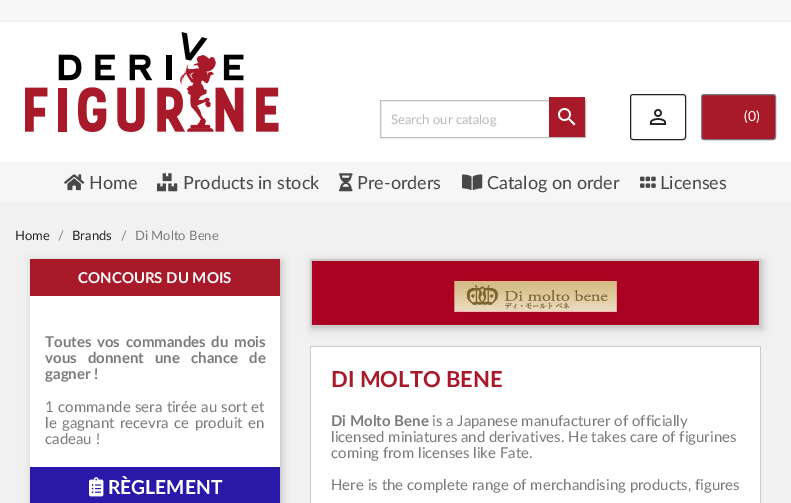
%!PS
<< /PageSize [791 503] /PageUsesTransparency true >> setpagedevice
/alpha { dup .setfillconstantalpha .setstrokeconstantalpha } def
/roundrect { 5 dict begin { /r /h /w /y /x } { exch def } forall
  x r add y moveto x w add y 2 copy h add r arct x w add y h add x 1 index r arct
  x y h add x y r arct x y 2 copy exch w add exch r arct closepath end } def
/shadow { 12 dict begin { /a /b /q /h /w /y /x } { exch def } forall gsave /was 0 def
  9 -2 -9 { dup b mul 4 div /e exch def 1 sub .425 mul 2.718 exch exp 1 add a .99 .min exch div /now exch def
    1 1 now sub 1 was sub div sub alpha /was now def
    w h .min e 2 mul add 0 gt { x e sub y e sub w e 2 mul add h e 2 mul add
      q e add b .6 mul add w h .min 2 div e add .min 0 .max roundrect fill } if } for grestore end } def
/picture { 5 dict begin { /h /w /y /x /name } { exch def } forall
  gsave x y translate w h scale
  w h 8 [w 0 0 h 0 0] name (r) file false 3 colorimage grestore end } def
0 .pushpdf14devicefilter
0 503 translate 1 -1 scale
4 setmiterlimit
0.945 setgray
0 0 791 503 rectfill
0.969 setgray
0 0 791 20 rectfill
1 setgray
0 22 791 140 rectfill
(img1.rgb) 25 32 254 100 picture
0.749 setgray
380.5 100.5 205 37 rectstroke
/Lato-Regular [13 0 0 -13 0 0] selectfont
0.718 setgray
391 124 moveto (Search our catalog) show
0.659 0.098 0.165 setrgbcolor
549 97 36 40 rectfill
(img2.rgb) 558 108 18 18 picture
0.137 setgray
630.5 94.5 55 45 2.5 roundrect stroke
(img3.rgb) 650 109 16 16 picture
0.659 0.098 0.165 setrgbcolor
701.5 94.5 74 45 2.5 roundrect gsave fill grestore
0.478 setgray
stroke
/Lato-Regular [14 0 0 -14 0 0] selectfont
1 setgray
744 121 moveto (\(0\)) show
0.965 setgray
0 162 791 40 rectfill
(img4.rgb) 64 174 21 17 picture
/Lato-Regular [18 0 0 -18 0 0] selectfont
0.282 setgray
89 189 moveto (Home) show
(img5.rgb) 157 173 21 19 picture
183 189 moveto (Products in stock) show
(img6.rgb) 339 173 14 19 picture
357 189 moveto (Pre-orders) show
(img7.rgb) 462 174 21 17 picture
487 189 moveto (Catalog on order) show
(img8.rgb) 640 176 16 12 picture
660 189 moveto (Licenses) show
/Lato-Regular [13 0 0 -13 0 0] selectfont
0.137 setgray
15 240 moveto (Home) show
0.478 setgray
58 240 moveto (/) show
0.137 setgray
72 240 moveto (Brands) show
0.478 setgray
121 240 moveto (/) show
135 240 moveto (Di Molto Bene) show
0 setgray
32 261 250 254 0 4 0.2 shadow
1 setgray
30 296 250 171 rectfill
0.659 0.098 0.165 setrgbcolor
30 259 250 37 rectfill
/Lato-Bold [15 0 0 -15 0 0] selectfont
1 setgray
78 283 moveto (CONCOURS DU MOIS) show
0.478 setgray
45 347 moveto 2 0 32 (Toutes vos commandes du mois) widthshow
45 363 moveto 7.5 0 32 (vous donnent une chance de) widthshow
45 379 moveto (gagner !) show
/Lato-Regular [15 0 0 -15 0 0] selectfont
45 412 moveto 0.5 0 32 (1 commande sera tirée au sort et) widthshow
45 428 moveto 1.5 0 32 (le gagnant recevra ce produit en) widthshow
45 444 moveto (cadeau !) show
0.157 0.098 0.659 setrgbcolor
30 467 250 36 rectfill
(img9.rgb) 89 477 15 20 picture
/Lato-Bold [19.25 0 0 -19.25 0 0] selectfont
1 setgray
108 494 moveto (RÈGLEMENT) show
0 setgray
312 261 451 68 0 4 0.2 shadow
0.8 setgray
2 setlinewidth
311 260 449 66 rectstroke
(img10.rgb) 311 260 448 65 picture
1 setgray
311 347 449 156 rectfill
0.8 setgray
310 346 451 1 rectfill
760 346 1 157 rectfill
310 346 1 157 rectfill
/Lato-Bold [22 0 0 -22 0 0] selectfont
0.659 0.098 0.165 setrgbcolor
331 387 moveto (DI MOLTO BENE) show
/Lato-Bold [15 0 0 -15 0 0] selectfont
0.478 setgray
331 426 moveto (Di Molto Bene) show
/Lato-Regular [15 0 0 -15 0 0] selectfont
432 426 moveto (is a Japanese manufacturer of officially) show
331 442 moveto (licensed miniatures and derivatives. He takes care of figurines) show
331 458 moveto (coming from licenses like Fate.) show
331 490 moveto (Here is the complete range of merchandising products, figures) show
.poppdf14devicefilter showpage
